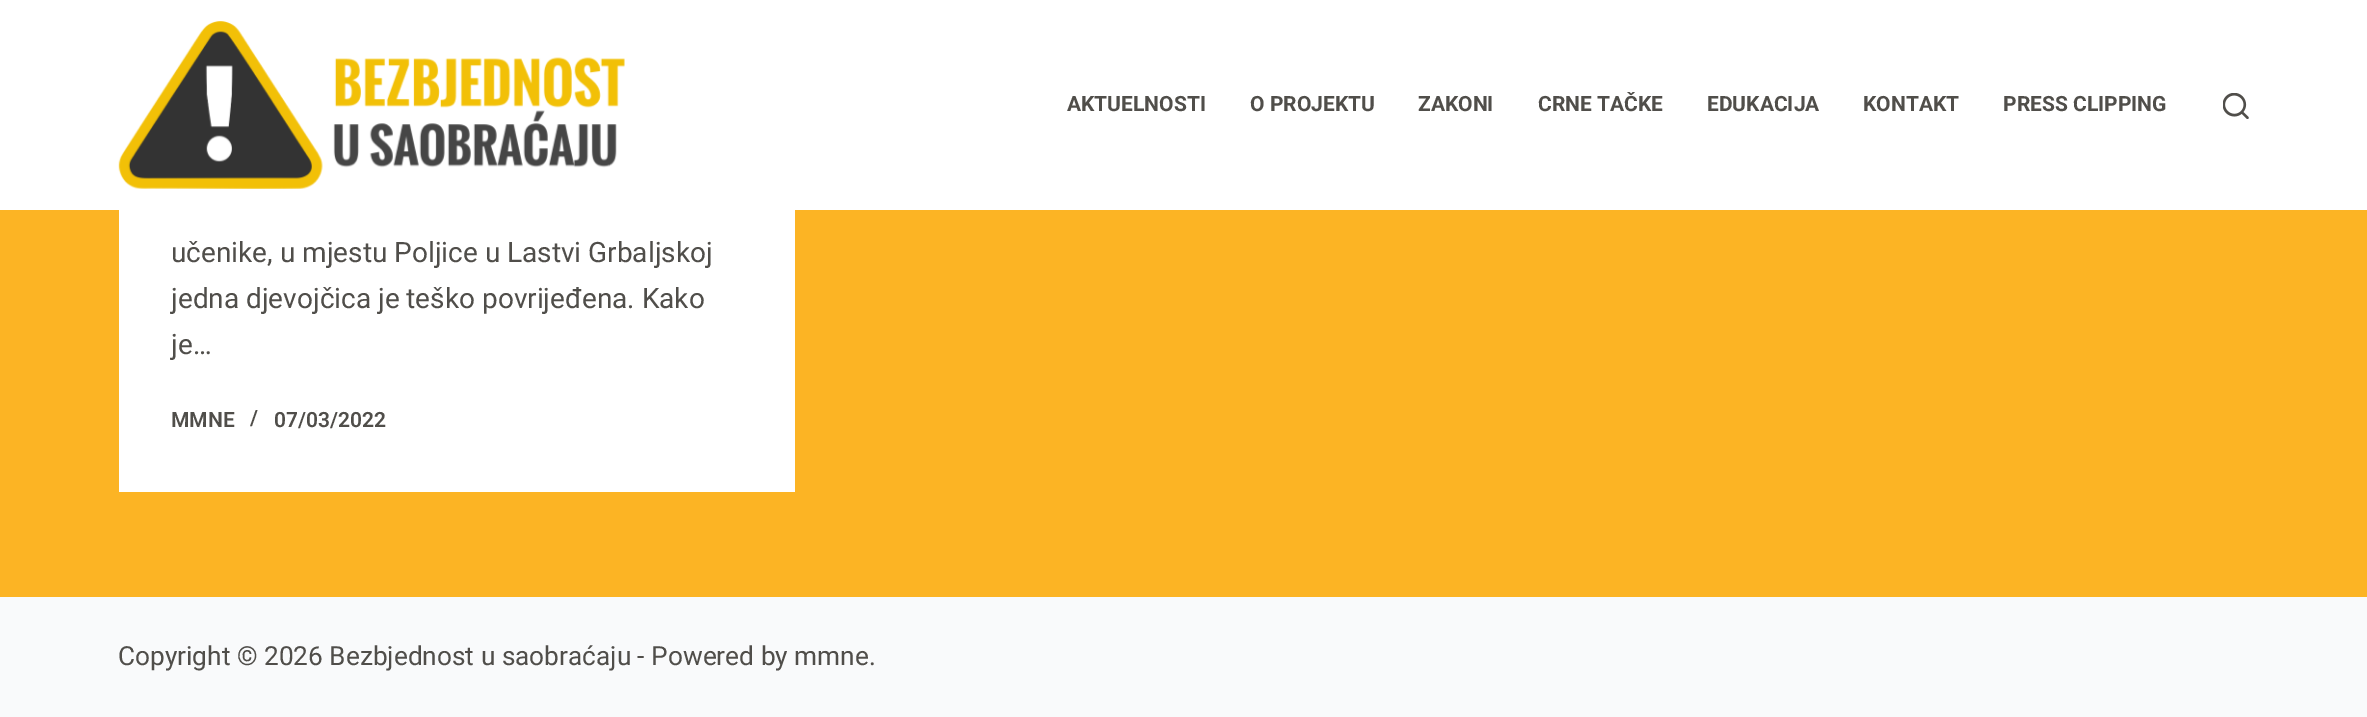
%!PS
<< /PageSize [2367 717] >> setpagedevice
/picture { 5 dict begin { /h /w /y /x /name } { exch def } forall
  gsave x y translate w h scale
  w h 8 [w 0 0 h 0 0] name (r) file false 3 colorimage grestore end } def
0 717 translate 1 -1 scale
4 setmiterlimit
0.988 0.706 0.141 setrgbcolor
0 0 2367 717 rectfill
1 setgray
0 0 2367 210 rectfill
(img1.rgb) 118 21 507 168 picture
/Roboto-Bold [21 0 0 -21 0 0] selectfont
0.314 0.306 0.29 setrgbcolor
1067 111 moveto (AKTUELNOSTI) show
1250 111 moveto (O PROJEKTU) show
1418 111 moveto (ZAKONI) show
1538 111 moveto (CRNE TAČKE) show
1707 111 moveto (EDUKACIJA) show
1863 111 moveto (KONTAKT) show
2003 111 moveto (PRESS CLIPPING) show
(img2.rgb) 2223 93 26 26 picture
1 setgray
119 210 676 282 rectfill
/Roboto-Regular [28 0 0 -28 0 0] selectfont
0.314 0.306 0.29 setrgbcolor
171 262 moveto (učenike, u mjestu Poljice u Lastvi Grbaljskoj) show
171 308 moveto (jedna djevojčica je teško povrijeđena. Kako) show
171 354 moveto (je…) show
/Roboto-SemiBold [21 0 0 -21 0 0] selectfont
171 427 moveto (MMNE) show
250 425 moveto (/) show
274 427 moveto (07/03/2022) show
0.976 0.98 0.984 setrgbcolor
0 597 2367 120 rectfill
/Roboto-Regular [26.25 0 0 -26.25 0 0] selectfont
0.314 0.306 0.29 setrgbcolor
118 665 moveto (Copyright © 2026 Bezbjednost u saobraćaju - Powered by mmne.) show
showpage
